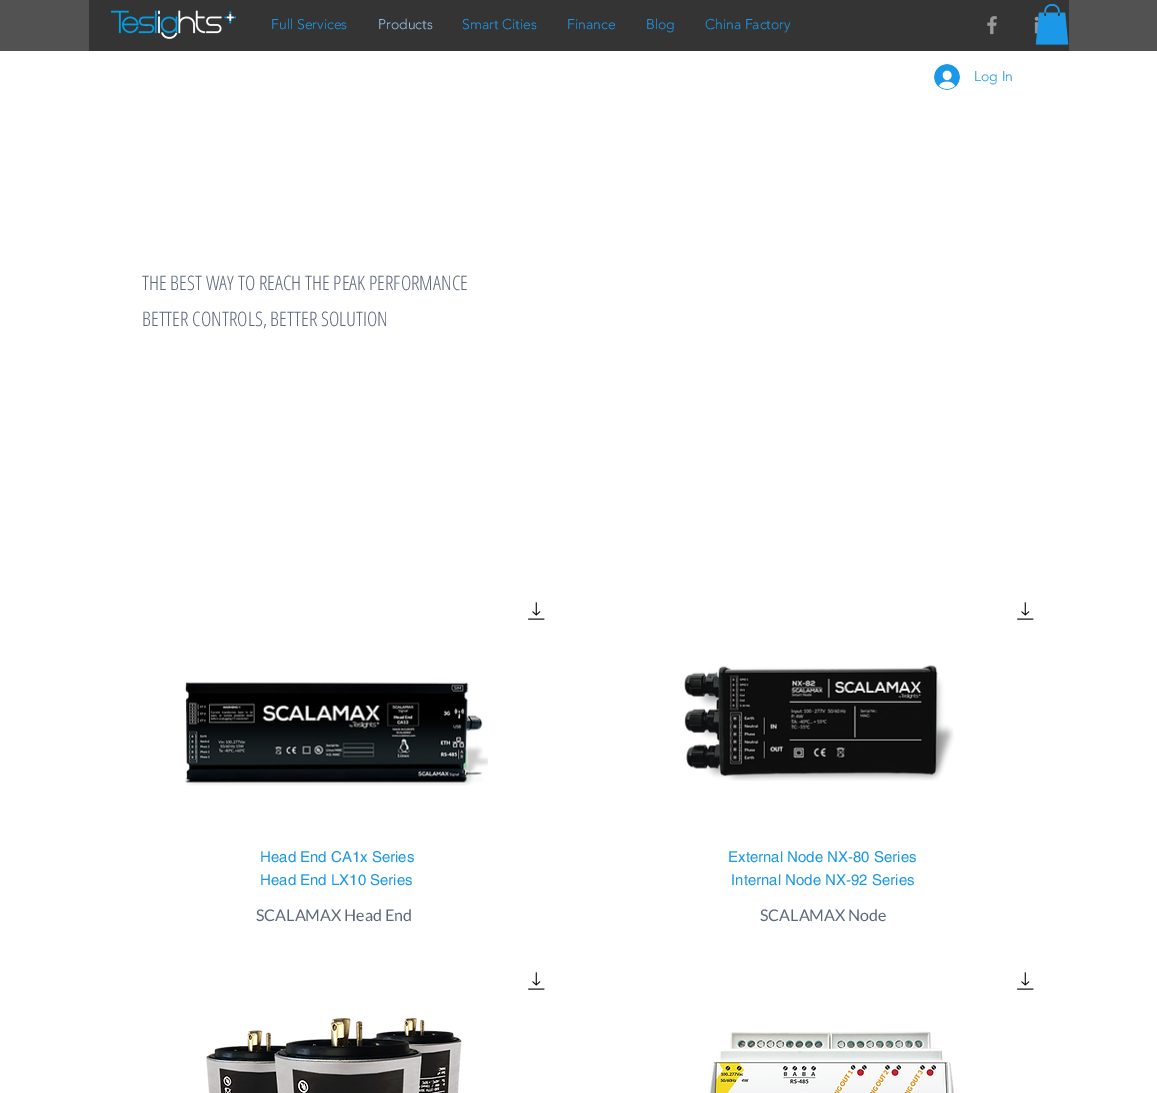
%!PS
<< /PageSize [1157 1093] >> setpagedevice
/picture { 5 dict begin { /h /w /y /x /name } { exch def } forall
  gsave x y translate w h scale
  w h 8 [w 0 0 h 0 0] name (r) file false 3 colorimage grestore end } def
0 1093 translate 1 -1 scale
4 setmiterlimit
1 setgray
0 0 1157 1093 rectfill
0.322 setgray
0 0 1157 51 rectfill
0.208 0.204 0.204 setrgbcolor
89 0 980 51 rectfill
(img1.rgb) 111 10 125 29 picture
/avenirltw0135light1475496-Light [14 0 0 -14 0 0] selectfont
0.106 0.6 0.91 setrgbcolor
271 29 moveto (Full Services) show
0.584 0.776 0.925 setrgbcolor
378 29 moveto (Products) show
0.106 0.6 0.91 setrgbcolor
462 29 moveto (Smart Cities) show
567 29 moveto (Finance) show
646 29 moveto (Blog) show
705 29 moveto (China Factory) show
(img2.rgb) 987 16 10 19 picture
(img3.rgb) 1034 16 5 18 picture
(img4.rgb) 1035 4 34 41 picture
(img5.rgb) 934 64 26 26 picture
974 81 moveto (Log In) show
/OpenSansCondensed-Light [20 0 0 -20 0 0] selectfont
0.361 0.412 0.482 setrgbcolor
142 290 moveto (THE BEST WAY TO REACH THE PEAK PERFORMANCE) show
142 326 moveto (BETTER CONTROLS, BETTER SOLUTION) show
/helvetica-Regular [15 0 0 -15 0 0] selectfont
0.106 0.6 0.91 setrgbcolor
260 862 moveto (Head End CA1x Series) show
728 862 moveto (External Node NX-80 Series) show
260 885 moveto (Head End LX10 Series) show
731 885 moveto (Internal Node NX-92 Series) show
(img6.rgb) 528 602 17 18 picture
(img7.rgb) 185 682 303 104 picture
/Lato-Regular [16 0 0 -16 0 0] selectfont
0.361 0.412 0.482 setrgbcolor
256 921 moveto (SCALAMAX Head End) show
(img6.rgb) 1017 602 17 18 picture
(img8.rgb) 684 664 270 117 picture
760 921 moveto (SCALAMAX Node) show
(img6.rgb) 528 972 17 18 picture
(img9.rgb) 206 1018 256 75 picture
(img6.rgb) 1017 972 17 18 picture
(img10.rgb) 708 1031 246 62 picture
showpage
